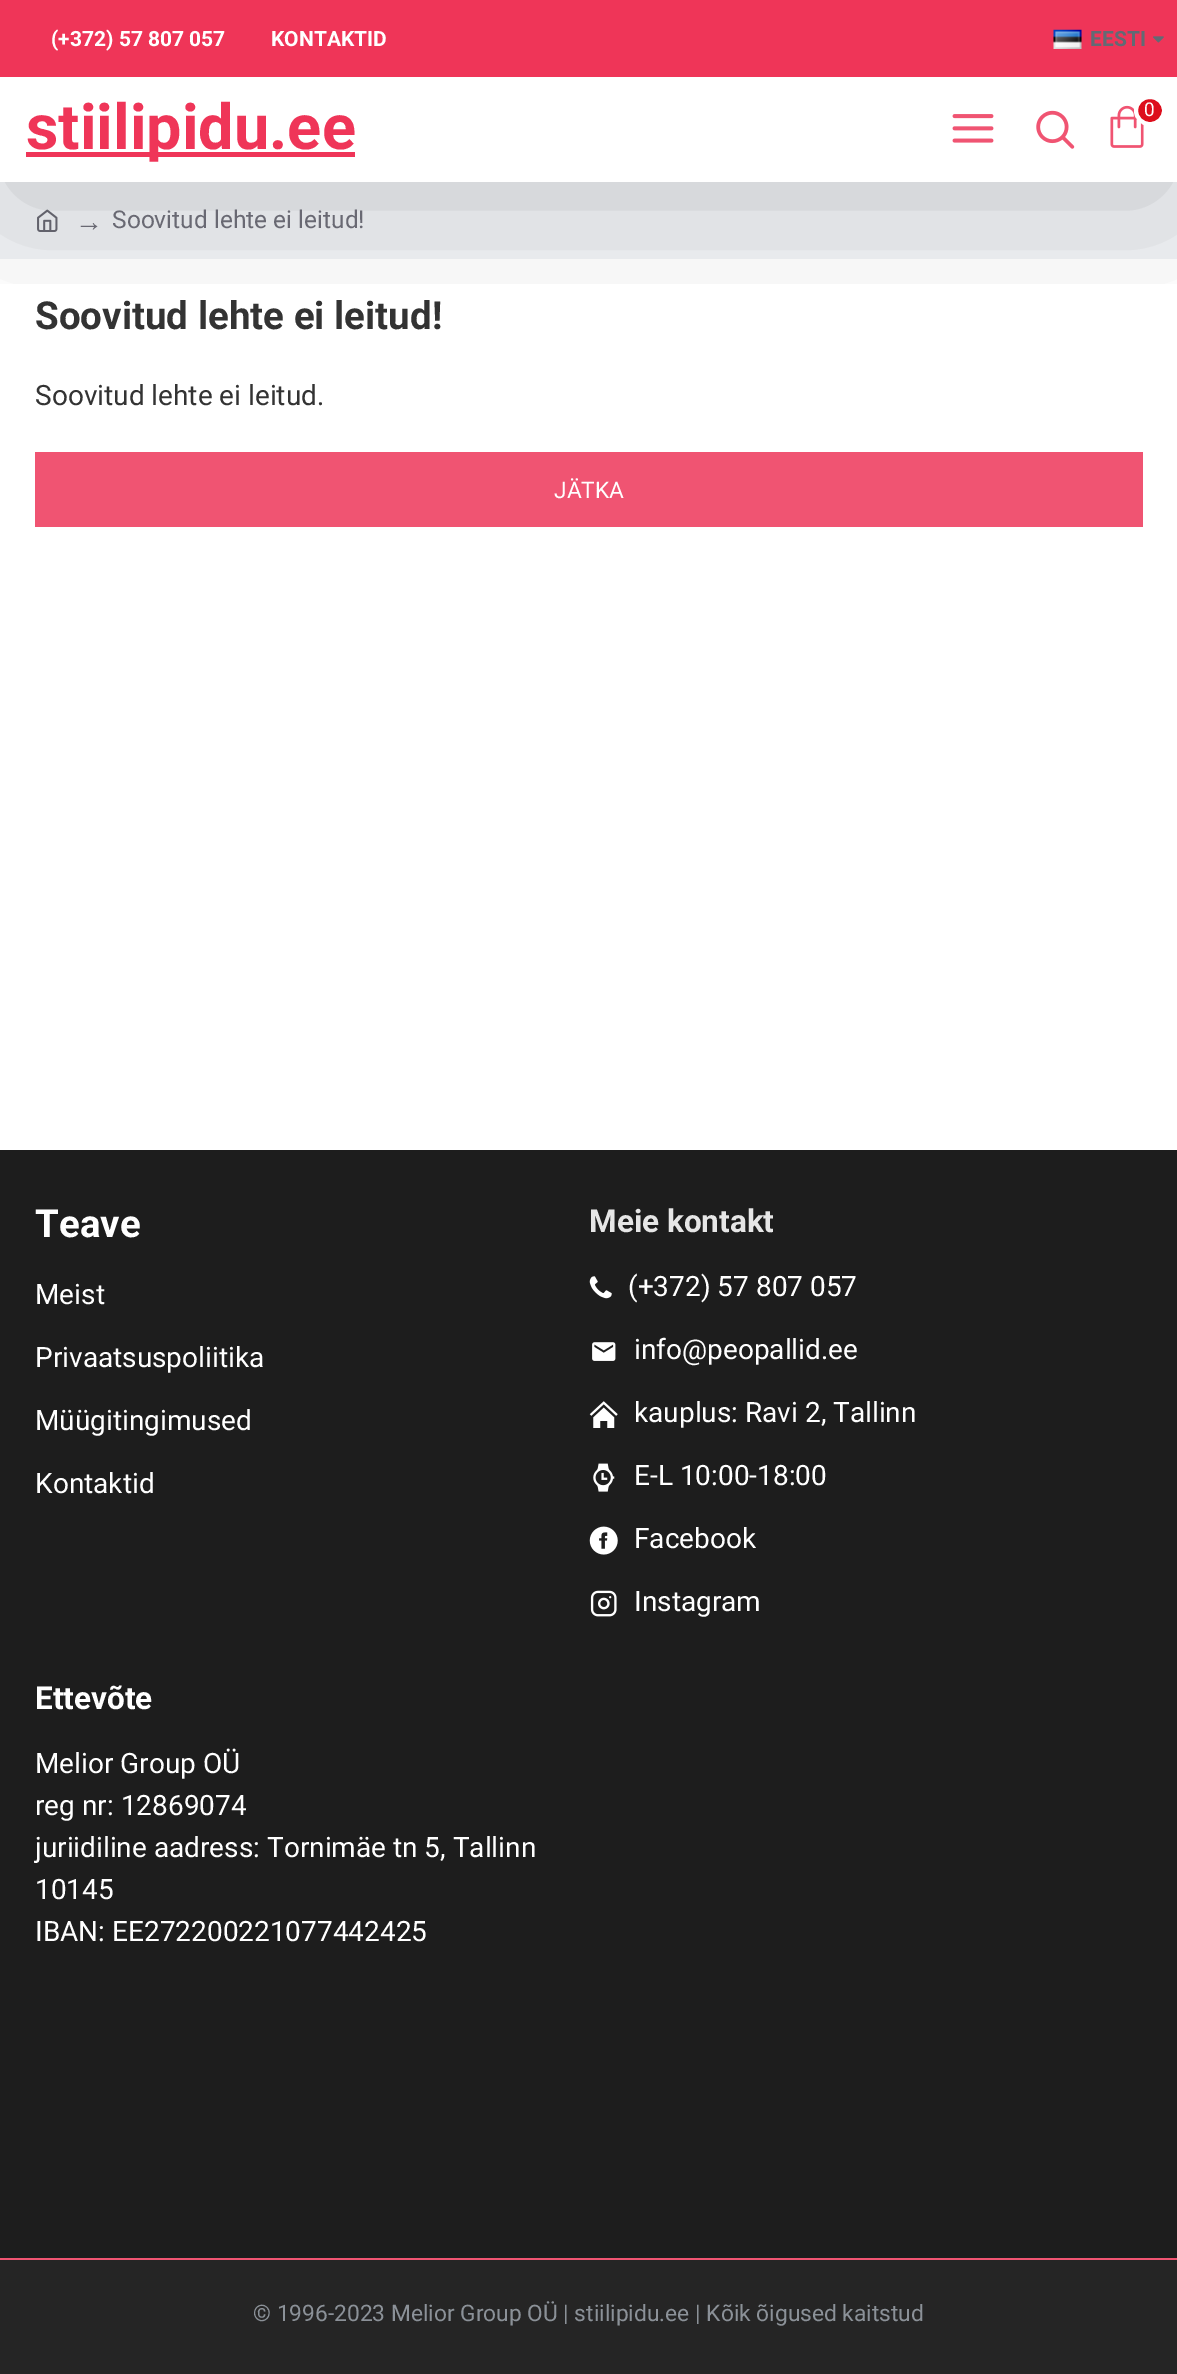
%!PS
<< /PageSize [1177 2374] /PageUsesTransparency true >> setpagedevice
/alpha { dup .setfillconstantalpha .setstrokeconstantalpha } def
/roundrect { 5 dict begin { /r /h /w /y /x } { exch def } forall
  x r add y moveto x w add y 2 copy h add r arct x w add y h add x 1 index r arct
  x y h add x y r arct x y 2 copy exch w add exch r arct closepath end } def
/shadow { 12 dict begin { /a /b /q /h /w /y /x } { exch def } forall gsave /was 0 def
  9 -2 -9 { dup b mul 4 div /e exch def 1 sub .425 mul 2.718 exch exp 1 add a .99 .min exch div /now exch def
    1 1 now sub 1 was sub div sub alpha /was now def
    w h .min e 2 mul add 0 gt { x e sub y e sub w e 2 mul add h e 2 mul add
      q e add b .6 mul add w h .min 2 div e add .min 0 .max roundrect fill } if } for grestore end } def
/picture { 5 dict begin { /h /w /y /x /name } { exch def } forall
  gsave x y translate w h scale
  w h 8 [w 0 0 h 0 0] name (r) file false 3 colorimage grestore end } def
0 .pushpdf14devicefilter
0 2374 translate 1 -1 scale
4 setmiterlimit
1 setgray
0 0 1177 2374 rectfill
0.941 0.949 0.961 setrgbcolor
0 182 1177 77 rectfill
(img6.rgb) 37 209 21 23 picture
gsave
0 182 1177 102 rectclip
0 setgray
18 121 1142 70 0 79 0.2 shadow
grestore
0.937 0.208 0.345 setrgbcolor
0 0 1177 77 rectfill
/Roboto-Bold [21 0 0 -21 0 0] selectfont
1 setgray
51 46 moveto (\(+372\) 57 807 057) show
271 46 moveto (KONTAKTID) show
(img1.rgb) 1053 29 29 20 picture
0.384 0.416 0.455 setrgbcolor
1090 46 moveto (EESTI) show
(img2.rgb) 1153 36 11 7 picture
0.937 0.208 0.345 setrgbcolor
26 152 329 5 rectfill
/Roboto-Bold [63 0 0 -63 0 0] selectfont
26 149 moveto (stiilipidu.ee) show
(img3.rgb) 952 114 42 29 picture
(img4.rgb) 1036 110 39 39 picture
(img5.rgb) 1110 105 34 43 picture
0.867 0.055 0.11 setrgbcolor
1136 97 28 27 13.5 roundrect gsave fill grestore
1 setgray
4 setlinewidth
stroke
/Roboto-Regular [19 0 0 -19 0 0] selectfont
1144 116 moveto (0) show
/LiberationSerif-Regular [28 0 0 -28 0 0] selectfont
0.412 0.412 0.451 setrgbcolor
75 231 moveto (→) show
/Roboto-Regular [24.5 0 0 -24.5 0 0] selectfont
112 228 moveto (Soovitud lehte ei leitud!) show
/Roboto-Bold [38.5 0 0 -38.5 0 0] selectfont
0.2 setgray
35 329 moveto (Soovitud lehte ei leitud!) show
/Roboto-Regular [28 0 0 -28 0 0] selectfont
35 405 moveto (Soovitud lehte ei leitud.) show
0.941 0.329 0.447 setrgbcolor
35 452 1108 75 rectfill
/Roboto-Regular [22.75 0 0 -22.75 0 0] selectfont
1 setgray
554 498 moveto (JÄTKA) show
0.145 setgray
0 2260 1177 114 rectfill
0.114 setgray
0 1150 1177 1108 rectfill
/Roboto-Bold [38.5 0 0 -38.5 0 0] selectfont
1 setgray
35 1237 moveto (Teave) show
/Roboto-Regular [28 0 0 -28 0 0] selectfont
35 1304 moveto (Meist) show
35 1367 moveto (Privaatsuspoliitika) show
35 1430 moveto (Müügitingimused) show
35 1493 moveto (Kontaktid) show
/Roboto-Bold [31.5 0 0 -31.5 0 0] selectfont
0.902 setgray
589 1232 moveto (Meie kontakt) show
(img7.rgb) 589 1276 23 23 picture
/Roboto-Regular [28 0 0 -28 0 0] selectfont
1 setgray
628 1296 moveto (\(+372\) 57 807 057) show
(img8.rgb) 592 1342 24 19 picture
634 1359 moveto (info@peopallid.ee) show
(img9.rgb) 589 1401 29 27 picture
634 1422 moveto (kauplus: Ravi 2, Tallinn) show
(img10.rgb) 593 1463 22 29 picture
634 1485 moveto (E-L 10:00-18:00) show
(img11.rgb) 589 1526 29 29 picture
634 1548 moveto (Facebook) show
(img12.rgb) 590 1590 27 27 picture
634 1611 moveto (Instagram) show
/Roboto-Bold [31.5 0 0 -31.5 0 0] selectfont
35 1709 moveto (Ettevõte) show
/Roboto-Regular [28 0 0 -28 0 0] selectfont
35 1773 moveto (Melior Group OÜ) show
35 1815 moveto (reg nr: 12869074) show
35 1857 moveto (juriidiline aadress: Tornimäe tn 5, Tallinn) show
35 1899 moveto (10145) show
35 1941 moveto (IBAN: EE272200221077442425) show
0.941 0.329 0.447 setrgbcolor
0 2258 1177 2 rectfill
/Roboto-Regular [22.75 0 0 -22.75 0 0] selectfont
0.545 0.569 0.596 setrgbcolor
253 2321 moveto (© 1996-2023 Melior Group OÜ | stiilipidu.ee | Kõik õigused kaitstud) show
.poppdf14devicefilter showpage
